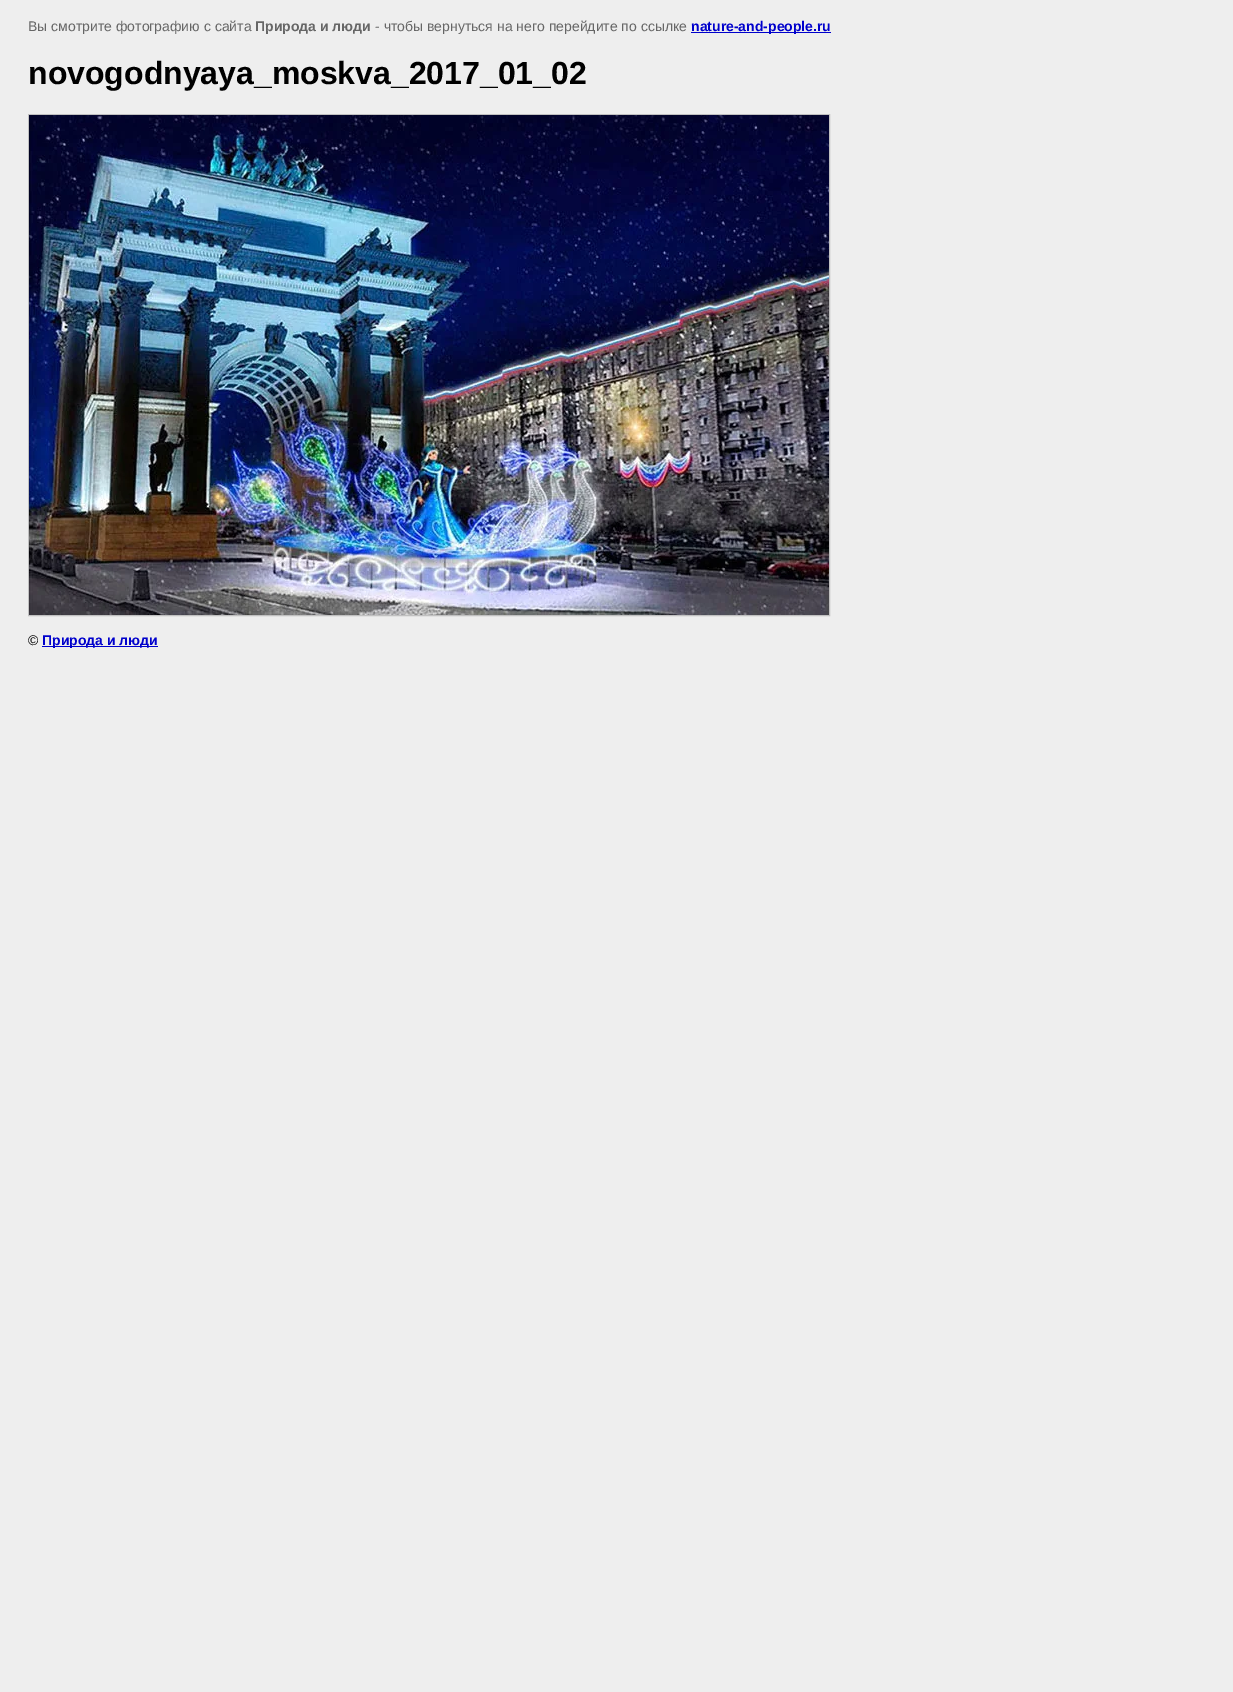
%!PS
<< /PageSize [1233 1692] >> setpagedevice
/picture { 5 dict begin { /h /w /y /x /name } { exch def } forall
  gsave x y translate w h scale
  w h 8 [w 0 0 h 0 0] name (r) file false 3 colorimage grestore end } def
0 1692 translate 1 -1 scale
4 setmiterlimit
0.933 setgray
0 0 1233 1692 rectfill
/LiberationSans-Regular [14 0 0 -14 0 0] selectfont
0.4 setgray
28 31 moveto (Вы смотрите фотографию с сайта) show
/LiberationSans-Bold [14 0 0 -14 0 0] selectfont
255 31 moveto (Природа и люди) show
/LiberationSans-Regular [14 0 0 -14 0 0] selectfont
375 31 moveto (- чтобы вернуться на него перейдите по ссылке) show
0 0 0.8 setrgbcolor
691 32 140 1 rectfill
/LiberationSans-Bold [14 0 0 -14 0 0] selectfont
691 31 moveto (nature-and-people.ru) show
/LiberationSans-Bold [32 0 0 -32 0 0] selectfont
0 setgray
28 84 moveto (novogodnyaya_moskva_2017_01_02) show
0.753 setgray
28.5 114.5 801 501 rectstroke
(img1.rgb) 29 115 800 500 picture
/LiberationSans-Regular [14 0 0 -14 0 0] selectfont
0 setgray
28 645 moveto (©) show
0 0 0.8 setrgbcolor
42 646 116 1 rectfill
/LiberationSans-Bold [14 0 0 -14 0 0] selectfont
42 645 moveto (Природа и люди) show
showpage
